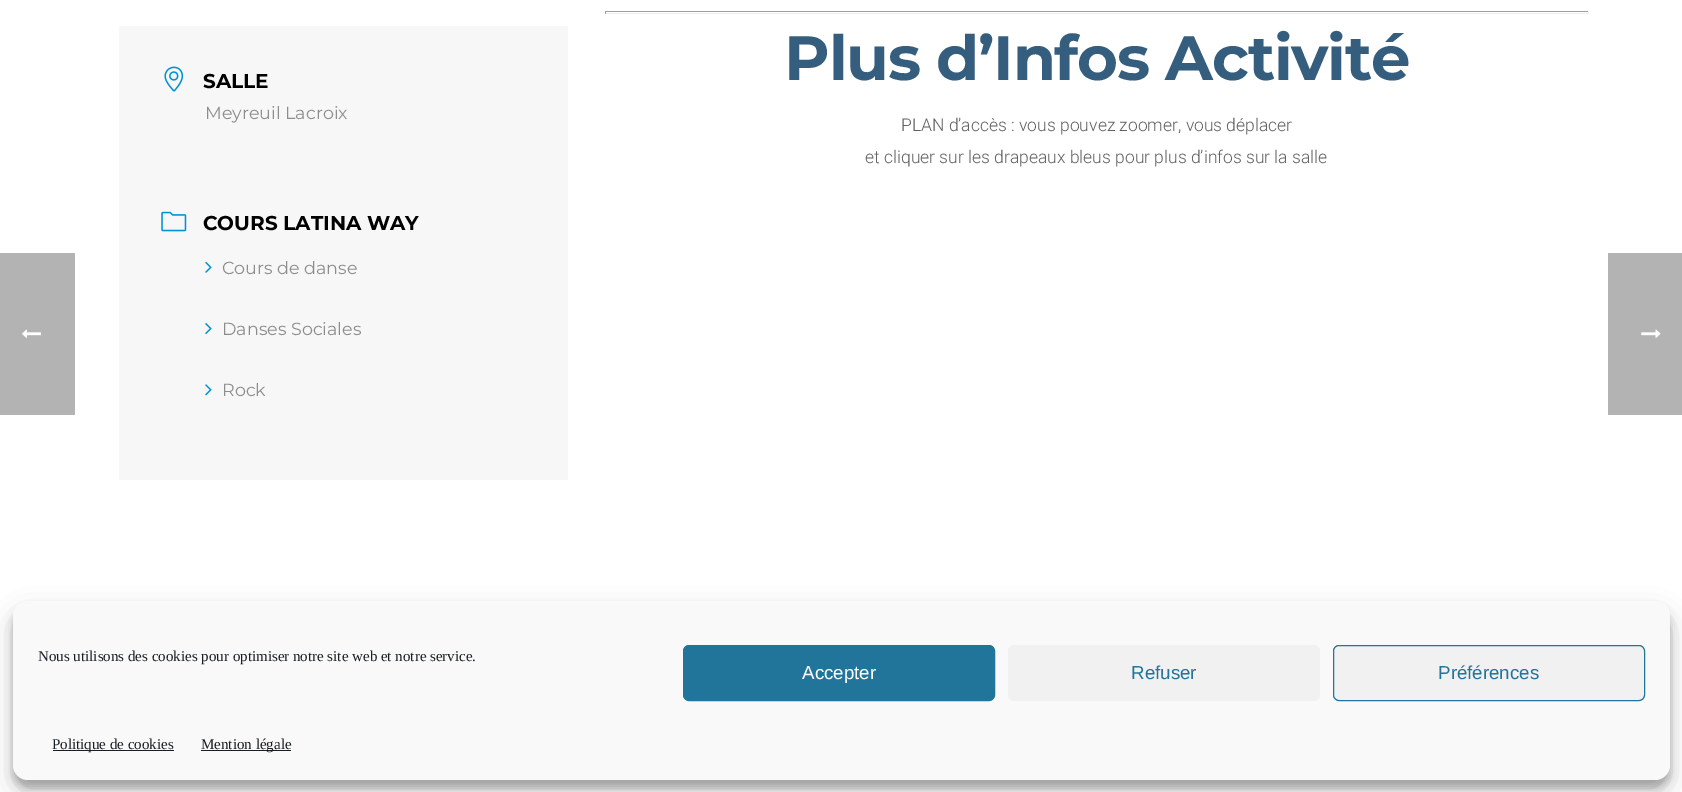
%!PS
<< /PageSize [1682 792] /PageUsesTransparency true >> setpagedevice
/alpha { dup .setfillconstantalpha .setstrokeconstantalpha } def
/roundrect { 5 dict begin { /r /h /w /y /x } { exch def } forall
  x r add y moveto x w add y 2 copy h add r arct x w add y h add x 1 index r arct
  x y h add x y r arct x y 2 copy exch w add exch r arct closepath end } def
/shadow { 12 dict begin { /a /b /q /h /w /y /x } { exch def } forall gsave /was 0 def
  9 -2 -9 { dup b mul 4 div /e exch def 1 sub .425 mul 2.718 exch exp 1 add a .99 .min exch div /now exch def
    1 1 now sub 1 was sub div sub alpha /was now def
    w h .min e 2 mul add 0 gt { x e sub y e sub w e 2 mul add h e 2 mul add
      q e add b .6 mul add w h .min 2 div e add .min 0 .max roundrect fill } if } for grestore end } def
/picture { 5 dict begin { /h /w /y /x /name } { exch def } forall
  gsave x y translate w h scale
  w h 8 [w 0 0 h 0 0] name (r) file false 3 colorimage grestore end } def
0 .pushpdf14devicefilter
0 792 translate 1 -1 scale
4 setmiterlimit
1 setgray
0 0 1682 792 rectfill
0.702 setgray
0 253 75 162 rectfill
(img1.rgb) 22 329 19 9 picture
0.969 setgray
119 26 449 454 rectfill
(img2.rgb) 164 66 20 26 picture
/Montserrat-Bold [20 0 0 -20 0 0] selectfont
0 setgray
203 88 moveto (SALLE) show
/Montserrat-Regular [17.5 0 0 -17.5 0 0] selectfont
0.553 setgray
205 119 moveto (Meyreuil Lacroix) show
(img3.rgb) 161 211 26 21 picture
/Montserrat-Bold [20 0 0 -20 0 0] selectfont
0 setgray
203 230 moveto (COURS LATINA WAY) show
(img4.rgb) 205 261 7 12 picture
/Montserrat-Regular [17.5 0 0 -17.5 0 0] selectfont
0.553 setgray
222 274 moveto (Cours de danse) show
(img5.rgb) 205 323 7 12 picture
222 335 moveto (Danses Sociales) show
(img6.rgb) 205 384 7 12 picture
222 396 moveto (Rock) show
0.624 setgray
605 11 984 1 rectfill
0.933 setgray
1588 11 1 3 rectfill
605 13 984 1 rectfill
0.624 setgray
605 11 1 3 rectfill
/Montserrat-Bold [62.5 0 0 -62.5 0 0] selectfont
0.204 0.365 0.494 setrgbcolor
784 80 moveto -1.25 0 (Plus d’Infos Activité) ashow
/Roboto-Light [17.5 0 0 -17.5 0 0] selectfont
0.38 setgray
901 131 moveto (PLAN d’accès : vous pouvez zoomer, vous déplacer) show
865 163 moveto (et cliquer sur les drapeaux bleus pour plus d’infos sur la salle) show
0.702 setgray
1608 253 74 162 rectfill
(img7.rgb) 1641 329 20 9 picture
0 setgray
13 609 1657 179 15 4 0.23 shadow
13 614 1657 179 15 12.5 0.19 shadow
0.976 setgray
13 601 1657 179 15 roundrect fill
/LiberationSerif-Regular [15 0 0 -15 0 0] selectfont
0.098 0.118 0.137 setrgbcolor
38 661 moveto (Nous utilisons des cookies pour optimiser notre site web et notre service.) show
0.129 0.459 0.608 setrgbcolor
683.5 645.5 311 55 5.5 roundrect gsave fill grestore
stroke
/LiberationSans-Regular [18.75 0 0 -18.75 0 0] selectfont
1 setgray
802 679 moveto (Accepter) show
0.945 setgray
1008 645 312 56 6 roundrect fill
0.129 0.459 0.608 setrgbcolor
1131 679 moveto (Refuser) show
0.945 setgray
1333.5 645.5 311 55 5.5 roundrect gsave fill grestore
0.129 0.459 0.608 setrgbcolor
stroke
1438 679 moveto (Préférences) show
0.098 0.118 0.137 setrgbcolor
53 750 121 1 rectfill
/LiberationSerif-Regular [15 0 0 -15 0 0] selectfont
52 749 moveto (Politique de cookies) show
201 750 90 1 rectfill
201 749 moveto (Mention légale) show
.poppdf14devicefilter showpage
